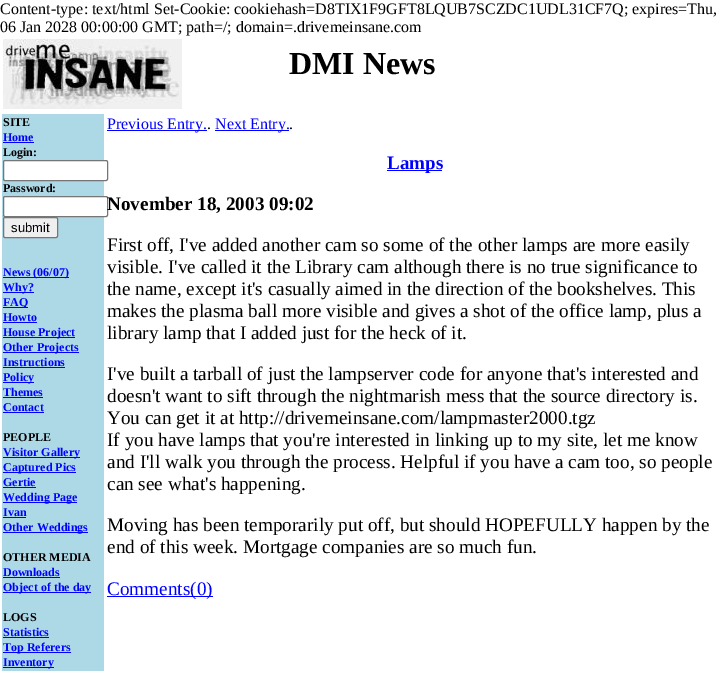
%!PS
<< /PageSize [725 675] >> setpagedevice
/roundrect { 5 dict begin { /r /h /w /y /x } { exch def } forall
  x r add y moveto x w add y 2 copy h add r arct x w add y h add x 1 index r arct
  x y h add x y r arct x y 2 copy exch w add exch r arct closepath end } def
/picture { 5 dict begin { /h /w /y /x /name } { exch def } forall
  gsave x y translate w h scale
  w h 8 [w 0 0 h 0 0] name (r) file false 3 colorimage grestore end } def
0 675 translate 1 -1 scale
4 setmiterlimit
1 setgray
0 0 725 675 rectfill
/LiberationSerif-Regular [16 0 0 -16 0 0] selectfont
0 setgray
0 14 moveto (Content-type: text/html Set-Cookie: cookiehash=D8TIX1F9GFT8LQUB7SCZDC1UDL31CF7Q; expires=Thu,) show
0 32 moveto (06 Jan 2028 00:00:00 GMT; path=/; domain=.drivemeinsane.com) show
(img1.rgb) 3 39 179 70 picture
/LiberationSerif-Bold [32 0 0 -32 0 0] selectfont
289 74 moveto (DMI News) show
0.678 0.847 0.902 setrgbcolor
2 114 102 557 rectfill
/LiberationSerif-Bold [12 0 0 -12 0 0] selectfont
0 setgray
3 126 moveto (SITE) show
0 0 1 setrgbcolor
3 141 moveto (Home) show
3 142 31 1 rectfill
0 setgray
3 156 moveto (Login:) show
1 setgray
3.5 160.5 104 20 1.5 roundrect gsave fill grestore
0.463 setgray
stroke
0 setgray
3 192 moveto (Password:) show
1 setgray
3.5 196.5 104 20 1.5 roundrect gsave fill grestore
0.463 setgray
stroke
0.937 setgray
3.5 217.5 54 20 1.5 roundrect gsave fill grestore
0.463 setgray
stroke
/LiberationSans-Regular [13 0 0 -13 0 0] selectfont
0 setgray
11 232 moveto (submit) show
0 0 1 setrgbcolor
3 277 66 1 rectfill
/LiberationSerif-Bold [12 0 0 -12 0 0] selectfont
3 276 moveto (News \(06/07\)) show
3 292 31 1 rectfill
3 291 moveto (Why?) show
3 307 25 1 rectfill
3 306 moveto (FAQ) show
3 321 moveto (Howto) show
3 322 34 1 rectfill
3 337 72 1 rectfill
3 336 moveto (House Project) show
3 352 76 1 rectfill
3 351 moveto (Other Projects) show
3 366 moveto (Instructions) show
3 367 62 1 rectfill
3 382 31 1 rectfill
3 381 moveto (Policy) show
3 396 moveto (Themes) show
3 397 40 1 rectfill
3 411 moveto (Contact) show
3 412 41 1 rectfill
0 setgray
3 441 moveto (PEOPLE) show
0 0 1 setrgbcolor
3 457 77 1 rectfill
3 456 moveto (Visitor Gallery) show
3 472 73 1 rectfill
3 471 moveto (Captured Pics) show
3 486 moveto (Gertie) show
3 487 33 1 rectfill
3 502 74 1 rectfill
3 501 moveto (Wedding Page) show
3 516 moveto (Ivan) show
3 517 23 1 rectfill
3 532 85 1 rectfill
3 531 moveto (Other Weddings) show
0 setgray
3 561 moveto (OTHER MEDIA) show
0 0 1 setrgbcolor
3 576 moveto (Downloads) show
3 577 57 1 rectfill
3 592 88 1 rectfill
3 591 moveto (Object of the day) show
0 setgray
3 621 moveto (LOGS) show
0 0 1 setrgbcolor
3 636 moveto (Statistics) show
3 637 46 1 rectfill
3 652 68 1 rectfill
3 651 moveto (Top Referers) show
3 667 51 1 rectfill
3 666 moveto (Inventory) show
107 130 100 1 rectfill
/LiberationSerif-Regular [16 0 0 -16 0 0] selectfont
107 129 moveto (Previous Entry.) show
0 setgray
207 129 moveto (.) show
0 0 1 setrgbcolor
215 130 74 1 rectfill
215 129 moveto (Next Entry.) show
0 setgray
289 129 moveto (.) show
0 0 1 setrgbcolor
387 170 55 1 rectfill
/LiberationSerif-Bold [19 0 0 -19 0 0] selectfont
387 169 moveto (Lamps) show
/LiberationSerif-Bold [19.2 0 0 -19.2 0 0] selectfont
0 setgray
107 210 moveto (November 18, 2003 09:02) show
/LiberationSerif-Regular [19.2 0 0 -19.2 0 0] selectfont
107 251 moveto (First off, I've added another cam so some of the other lamps are more easily) show
107 273 moveto (visible. I've called it the Library cam although there is no true significance to) show
107 295 moveto (the name, except it's casually aimed in the direction of the bookshelves. This) show
107 317 moveto (makes the plasma ball more visible and gives a shot of the office lamp, plus a) show
107 339 moveto (library lamp that I added just for the heck of it.) show
107 380 moveto (I've built a tarball of just the lampserver code for anyone that's interested and) show
107 402 moveto (doesn't want to sift through the nightmarish mess that the source directory is.) show
107 424 moveto (You can get it at http://drivemeinsane.com/lampmaster2000.tgz) show
107 446 moveto (If you have lamps that you're interested in linking up to my site, let me know) show
107 468 moveto (and I'll walk you through the process. Helpful if you have a cam too, so people) show
107 490 moveto (can see what's happening.) show
107 531 moveto (Moving has been temporarily put off, but should HOPEFULLY happen by the) show
107 553 moveto (end of this week. Mortgage companies are so much fun.) show
0 0 1 setrgbcolor
107 596 106 1 rectfill
107 595 moveto (Comments\(0\)) show
showpage
